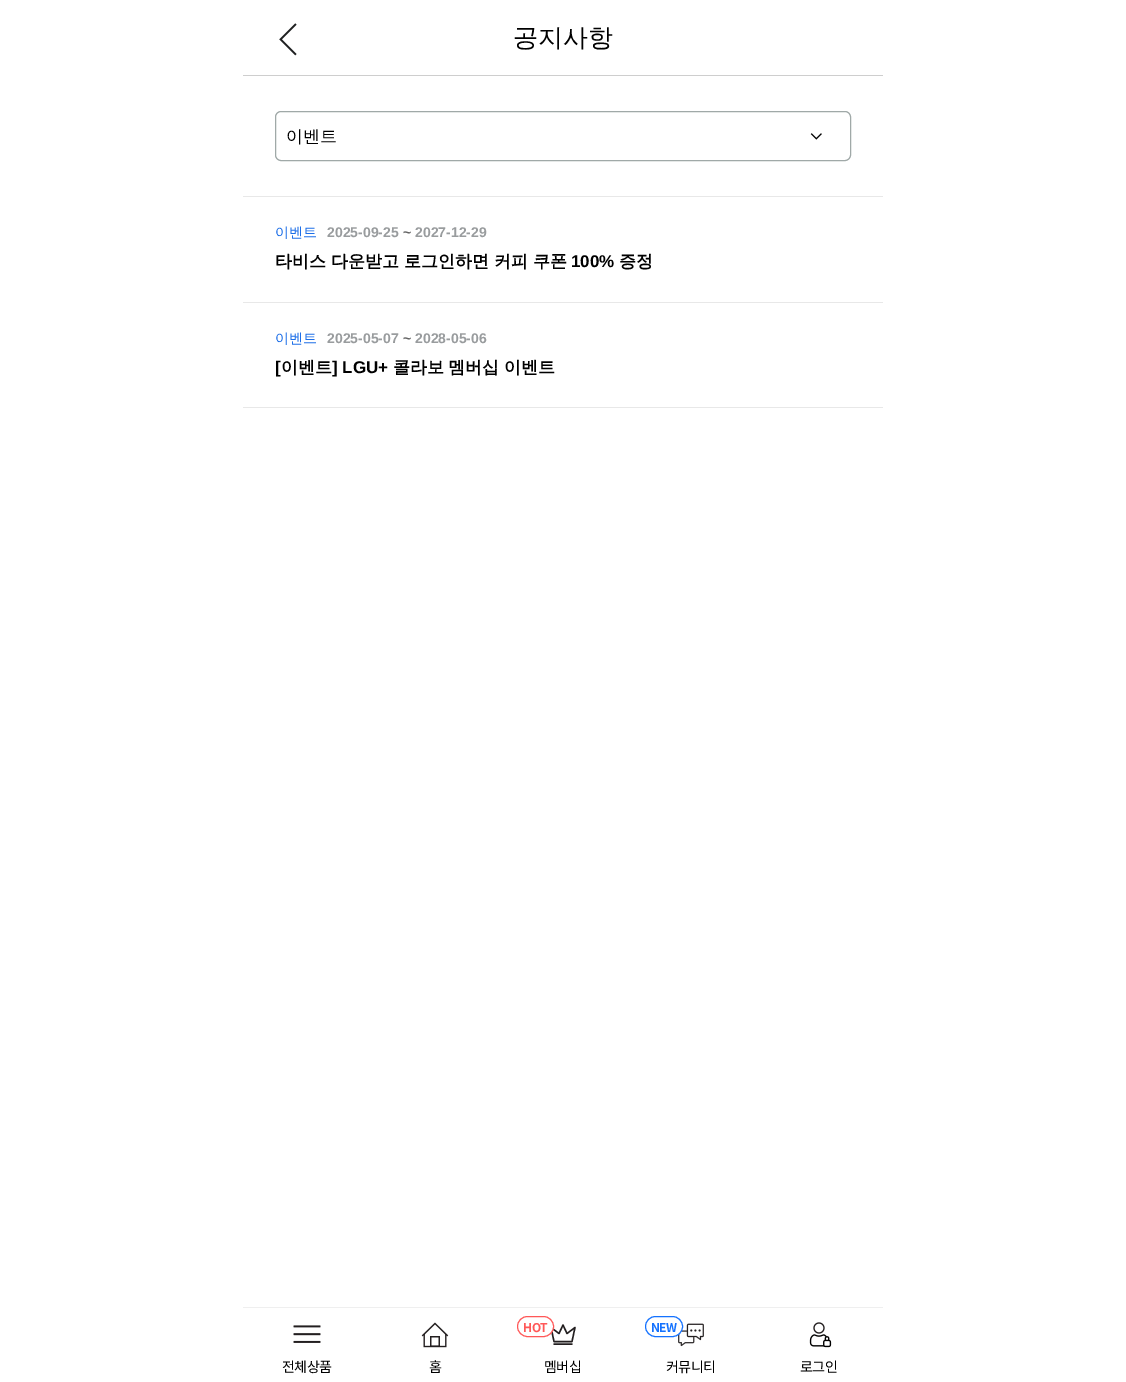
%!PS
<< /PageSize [1126 1382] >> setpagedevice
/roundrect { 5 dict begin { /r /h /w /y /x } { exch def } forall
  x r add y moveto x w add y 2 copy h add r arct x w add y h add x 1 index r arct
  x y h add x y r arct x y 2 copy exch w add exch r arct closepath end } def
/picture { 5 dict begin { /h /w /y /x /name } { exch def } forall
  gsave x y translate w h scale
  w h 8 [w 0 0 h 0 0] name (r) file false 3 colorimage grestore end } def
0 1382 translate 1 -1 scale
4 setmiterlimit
1 setgray
0 0 1126 1382 rectfill
(img1.rgb) 279 23 18 33 picture
/WenQuanYiZenHei-Medium [25 0 0 -25 0 0] selectfont
0 setgray
513 46 moveto (공지사항) show
0.808 setgray
243 75 640 1 rectfill
(img2.rgb) 810 133 12 7 picture
0.627 0.663 0.659 setrgbcolor
275.5 111.5 575 49 5.5 roundrect stroke
/WenQuanYiZenHei-Medium [17 0 0 -17 0 0] selectfont
0 setgray
286 142 moveto (이벤트) show
0.91 setgray
243 196 640 1 rectfill
243 302 640 1 rectfill
/WenQuanYiZenHei-Medium [14 0 0 -14 0 0] selectfont
0.11 0.431 0.91 setrgbcolor
275 237 moveto (이벤트) show
/LiberationSans-Bold [14 0 0 -14 0 0] selectfont
0.6 0.612 0.62 setrgbcolor
327 237 moveto (2025-09-25) show
0.392 setgray
403 237 moveto (~) show
0.6 0.612 0.62 setrgbcolor
415 237 moveto (2027-12-29) show
/WenQuanYiZenHei-Bold [17 0 0 -17 0 0] selectfont
0 setgray
275 267 moveto (타비스 다운받고 로그인하면 커피 쿠폰) show
/LiberationSans-Bold [17 0 0 -17 0 0] selectfont
571 267 moveto (100%) show
/WenQuanYiZenHei-Bold [17 0 0 -17 0 0] selectfont
619 267 moveto (증정) show
0.91 setgray
243 407 640 1 rectfill
/WenQuanYiZenHei-Medium [14 0 0 -14 0 0] selectfont
0.11 0.431 0.91 setrgbcolor
275 343 moveto (이벤트) show
/LiberationSans-Bold [14 0 0 -14 0 0] selectfont
0.6 0.612 0.62 setrgbcolor
327 343 moveto (2025-05-07) show
0.392 setgray
403 343 moveto (~) show
0.6 0.612 0.62 setrgbcolor
415 343 moveto (2028-05-06) show
/LiberationSans-Bold [17 0 0 -17 0 0] selectfont
0 setgray
275 373 moveto ([) show
/WenQuanYiZenHei-Bold [17 0 0 -17 0 0] selectfont
281 373 moveto (이벤트) show
/LiberationSans-Bold [17 0 0 -17 0 0] selectfont
332 373 moveto (] LGU+) show
/WenQuanYiZenHei-Bold [17 0 0 -17 0 0] selectfont
393 373 moveto (콜라보) show
448 373 moveto (멤버십) show
504 373 moveto (이벤트) show
0.937 setgray
243 1307 640 1 rectfill
(img3.rgb) 293 1325 28 18 picture
/NotoSansKR-Regular [14 0 0 -14 0 0] selectfont
0 setgray
282 1372 moveto -0.5 0 (전체상품) ashow
(img4.rgb) 421 1322 28 26 picture
429 1372 moveto -0.5 0 (홈) ashow
0.137 0.122 0.125 setrgbcolor
1.4 setlinewidth
1 setlinecap
1 setlinejoin
newpath 567 1333.5 moveto 563 1325 lineto 559 1333.5 lineto 551 1327.5 lineto 554 1341.5 lineto 572 1341.5 lineto 575 1327.5 lineto closepath 554 1344 moveto 572 1344 lineto stroke
1 setgray
517.5 1316.5 36 20 10 roundrect gsave fill grestore
1 0.345 0.345 setrgbcolor
1 setlinewidth
0 setlinecap
0 setlinejoin
stroke
/NotoSansKR-Bold [12 0 0 -12 0 0] selectfont
523 1332 moveto -0.5 0 (HOT) ashow
/NotoSansKR-Regular [14 0 0 -14 0 0] selectfont
0 setgray
544 1372 moveto -0.5 0 (멤버십) ashow
(img5.rgb) 678 1323 26 24 picture
1 setgray
645.5 1316.5 37 20 10 roundrect gsave fill grestore
0.078 0.447 1 setrgbcolor
stroke
/NotoSansKR-Bold [12 0 0 -12 0 0] selectfont
651 1332 moveto -0.5 0 (NEW) ashow
/NotoSansKR-Regular [14 0 0 -14 0 0] selectfont
0 setgray
666 1372 moveto -0.5 0 (커뮤니티) ashow
(img6.rgb) 809 1322 23 26 picture
800 1372 moveto -0.5 0 (로그인) ashow
showpage
